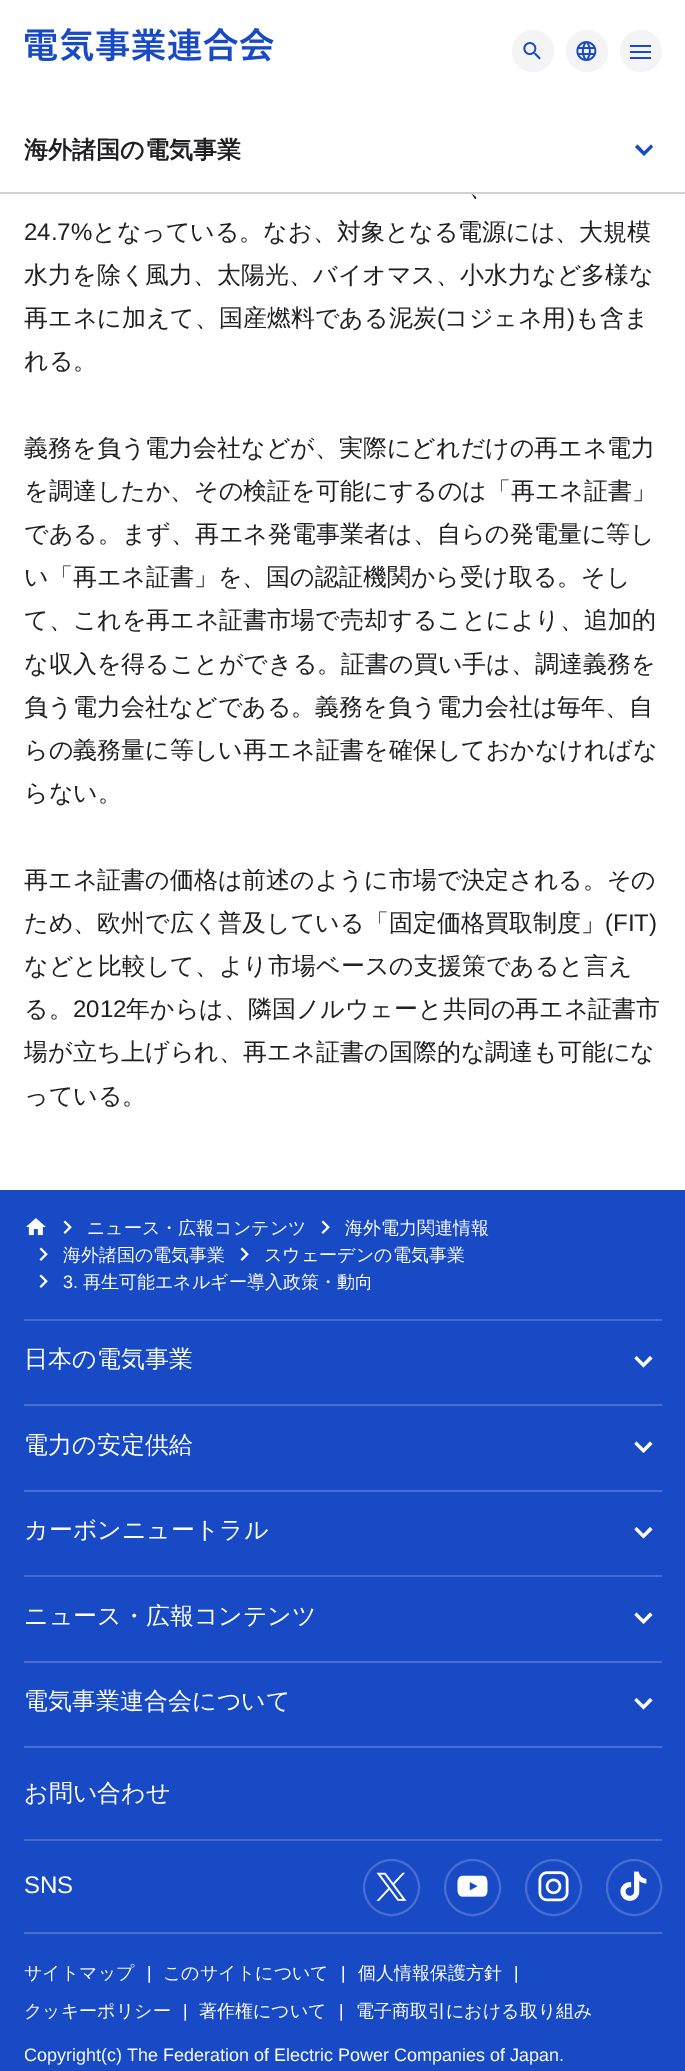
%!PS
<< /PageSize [685 2071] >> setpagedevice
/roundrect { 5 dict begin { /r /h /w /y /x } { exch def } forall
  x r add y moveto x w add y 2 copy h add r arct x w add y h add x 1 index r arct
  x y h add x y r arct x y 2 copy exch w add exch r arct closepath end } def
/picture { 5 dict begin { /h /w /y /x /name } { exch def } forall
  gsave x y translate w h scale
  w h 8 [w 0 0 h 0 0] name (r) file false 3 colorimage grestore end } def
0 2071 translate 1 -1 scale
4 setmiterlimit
1 setgray
0 0 685 2071 rectfill
(img1.rgb) 25 28 249 34 picture
0.957 0.957 0.969 setrgbcolor
newpath 533 51 21 0 360 arc closepath fill
(img2.rgb) 523 42 18 18 picture
newpath 587 51 21 0 360 arc closepath fill
(img3.rgb) 576 41 21 20 picture
newpath 641 51 21 0 360 arc closepath fill
0.09 0.29 0.769 setrgbcolor
630 45 21 2 rectfill
630 51 21 2 rectfill
630 57 21 2 rectfill
0.824 0.82 0.835 setrgbcolor
0 192 685 2 rectfill
/WenQuanYiZenHei-Bold [24 0 0 -24 0 0] selectfont
0.125 0.122 0.133 setrgbcolor
24 158 moveto (海外諸国の電気事業) show
0.09 0.29 0.769 setrgbcolor
newpath 653 147 moveto 644 156 lineto 635 147 lineto 637.5 144.5 lineto 644 151.5 lineto 651 144.5 lineto closepath fill
/WenQuanYiZenHei-Medium [24 0 0 -24 0 0] selectfont
0.125 0.122 0.133 setrgbcolor
469 196 moveto (、) show
/LiberationSans-Regular [24 0 0 -24 0 0] selectfont
24 240 moveto (24.7%) show
/WenQuanYiZenHei-Medium [24 0 0 -24 0 0] selectfont
92 240 moveto (となっている。なお、対象となる電源には、大規模) show
24 283 moveto (水力を除く風力、太陽光、バイオマス、小水力など多様な) show
24 326 moveto (再エネに加えて、国産燃料である泥炭) show
/LiberationSans-Regular [24 0 0 -24 0 0] selectfont
437 326 moveto (\() show
/WenQuanYiZenHei-Medium [24 0 0 -24 0 0] selectfont
444 326 moveto (コジェネ用) show
/LiberationSans-Regular [24 0 0 -24 0 0] selectfont
567 326 moveto (\)) show
/WenQuanYiZenHei-Medium [24 0 0 -24 0 0] selectfont
575 326 moveto (も含ま) show
24 369 moveto (れる。) show
24 456 moveto (義務を負う電力会社などが、実際にどれだけの再エネ電力) show
24 499 moveto (を調達したか、その検証を可能にするのは「再エネ証書」) show
24 542 moveto (である。まず、再エネ発電事業者は、自らの発電量に等し) show
24 585 moveto (い「再エネ証書」を、国の認証機関から受け取る。そし) show
24 628 moveto (て、これを再エネ証書市場で売却することにより、追加的) show
24 672 moveto (な収入を得ることができる。証書の買い手は、調達義務を) show
24 715 moveto (負う電力会社などである。義務を負う電力会社は毎年、自) show
24 758 moveto (らの義務量に等しい再エネ証書を確保しておかなければな) show
24 801 moveto (らない。) show
24 888 moveto (再エネ証書の価格は前述のように市場で決定される。その) show
24 931 moveto (ため、欧州で広く普及している「固定価格買取制度」) show
/LiberationSans-Regular [24 0 0 -24 0 0] selectfont
605 931 moveto (\(FIT\)) show
/WenQuanYiZenHei-Medium [24 0 0 -24 0 0] selectfont
24 974 moveto (などと比較して、より市場ベースの支援策であると言え) show
24 1017 moveto (る。) show
/LiberationSans-Regular [24 0 0 -24 0 0] selectfont
73 1017 moveto (2012) show
/WenQuanYiZenHei-Medium [24 0 0 -24 0 0] selectfont
126 1017 moveto (年からは、隣国ノルウェーと共同の再エネ証書市) show
24 1060 moveto (場が立ち上げられ、再エネ証書の国際的な調達も可能にな) show
24 1104 moveto (っている。) show
0.09 0.29 0.769 setrgbcolor
0 1190 685 881 rectfill
(img4.rgb) 26 1218 20 18 picture
(img5.rgb) 63 1220 9 14 picture
/WenQuanYiZenHei-Medium [18 0 0 -18 0 0] selectfont
1 setgray
87 1234 moveto (ニュース・広報コンテンツ) show
(img5.rgb) 321 1220 9 14 picture
345 1234 moveto (海外電力関連情報) show
(img5.rgb) 39 1247 9 14 picture
63 1261 moveto (海外諸国の電気事業) show
(img5.rgb) 240 1247 9 14 picture
264 1261 moveto (スウェーデンの電気事業) show
(img5.rgb) 39 1274 9 14 picture
/LiberationSans-Regular [18 0 0 -18 0 0] selectfont
63 1288 moveto (3.) show
/WenQuanYiZenHei-Medium [18 0 0 -18 0 0] selectfont
83 1288 moveto (再生可能エネルギー導入政策・動向) show
0.271 0.431 0.816 setrgbcolor
24 1319 638 2 rectfill
/WenQuanYiZenHei-Medium [24 0 0 -24 0 0] selectfont
1 setgray
24 1367 moveto (日本の電気事業) show
newpath 650 1356 moveto 652.5 1358.5 lineto 643.5 1367.5 lineto 634.5 1358.5 lineto 636.5 1356 lineto 643.5 1363 lineto closepath fill
0.271 0.431 0.816 setrgbcolor
24 1404 638 2 rectfill
1 setgray
24 1453 moveto (電力の安定供給) show
newpath 650 1441.5 moveto 652.5 1444 lineto 643.5 1453 lineto 634.5 1444 lineto 636.5 1441.5 lineto 643.5 1448.5 lineto closepath fill
0.271 0.431 0.816 setrgbcolor
24 1490 638 2 rectfill
1 setgray
24 1538 moveto (カーボンニュートラル) show
newpath 650 1527 moveto 652.5 1529.5 lineto 643.5 1538.5 lineto 634.5 1529.5 lineto 636.5 1527 lineto 643.5 1534 lineto closepath fill
0.271 0.431 0.816 setrgbcolor
24 1575 638 2 rectfill
1 setgray
24 1624 moveto (ニュース・広報コンテンツ) show
newpath 650 1612.5 moveto 652.5 1615 lineto 643.5 1624 lineto 634.5 1615 lineto 636.5 1612.5 lineto 643.5 1619.5 lineto closepath fill
0.271 0.431 0.816 setrgbcolor
24 1661 638 2 rectfill
1 setgray
24 1709 moveto (電気事業連合会について) show
newpath 650 1698 moveto 652.5 1700.5 lineto 643.5 1709.5 lineto 634.5 1700.5 lineto 636.5 1698 lineto 643.5 1705 lineto closepath fill
0.271 0.431 0.816 setrgbcolor
24 1746 638 2 rectfill
1 setgray
24 1801 moveto (お問い合わせ) show
0.271 0.431 0.816 setrgbcolor
24 1839 638 2 rectfill
/LiberationSans-Regular [24 0 0 -24 0 0] selectfont
1 setgray
24 1893 moveto (SNS) show
0.271 0.431 0.816 setrgbcolor
2 setlinewidth
newpath 391.5 1887.5 27.5 0 360 arc closepath stroke
(img6.rgb) 376 1872 31 29 picture
newpath 472.5 1887.5 27.5 0 360 arc closepath stroke
(img7.rgb) 457 1875 31 22 picture
newpath 553.5 1887.5 27.5 0 360 arc closepath stroke
(img8.rgb) 538 1871 31 31 picture
607 1860 54 55 27 roundrect stroke
(img9.rgb) 620 1871 27 30 picture
24 1932 638 2 rectfill
/WenQuanYiZenHei-Medium [18 0 0 -18 0 0] selectfont
1 setgray
24 1979 moveto (サイトマップ) show
/LiberationSans-Regular [18 0 0 -18 0 0] selectfont
147 1979 moveto (|) show
/WenQuanYiZenHei-Medium [18 0 0 -18 0 0] selectfont
163 1979 moveto (このサイトについて) show
/LiberationSans-Regular [18 0 0 -18 0 0] selectfont
341 1979 moveto (|) show
/WenQuanYiZenHei-Medium [18 0 0 -18 0 0] selectfont
358 1979 moveto (個人情報保護方針) show
/LiberationSans-Regular [18 0 0 -18 0 0] selectfont
514 1979 moveto (|) show
/WenQuanYiZenHei-Medium [18 0 0 -18 0 0] selectfont
24 2017 moveto (クッキーポリシー) show
/LiberationSans-Regular [18 0 0 -18 0 0] selectfont
183 2017 moveto (|) show
/WenQuanYiZenHei-Medium [18 0 0 -18 0 0] selectfont
199 2017 moveto (著作権について) show
/LiberationSans-Regular [18 0 0 -18 0 0] selectfont
339 2017 moveto (|) show
/WenQuanYiZenHei-Medium [18 0 0 -18 0 0] selectfont
356 2017 moveto (電子商取引における取り組み) show
/LiberationSans-Regular [18 0 0 -18 0 0] selectfont
24 2061 moveto (Copyright\(c\) The Federation of Electric Power Companies of Japan.) show
showpage
